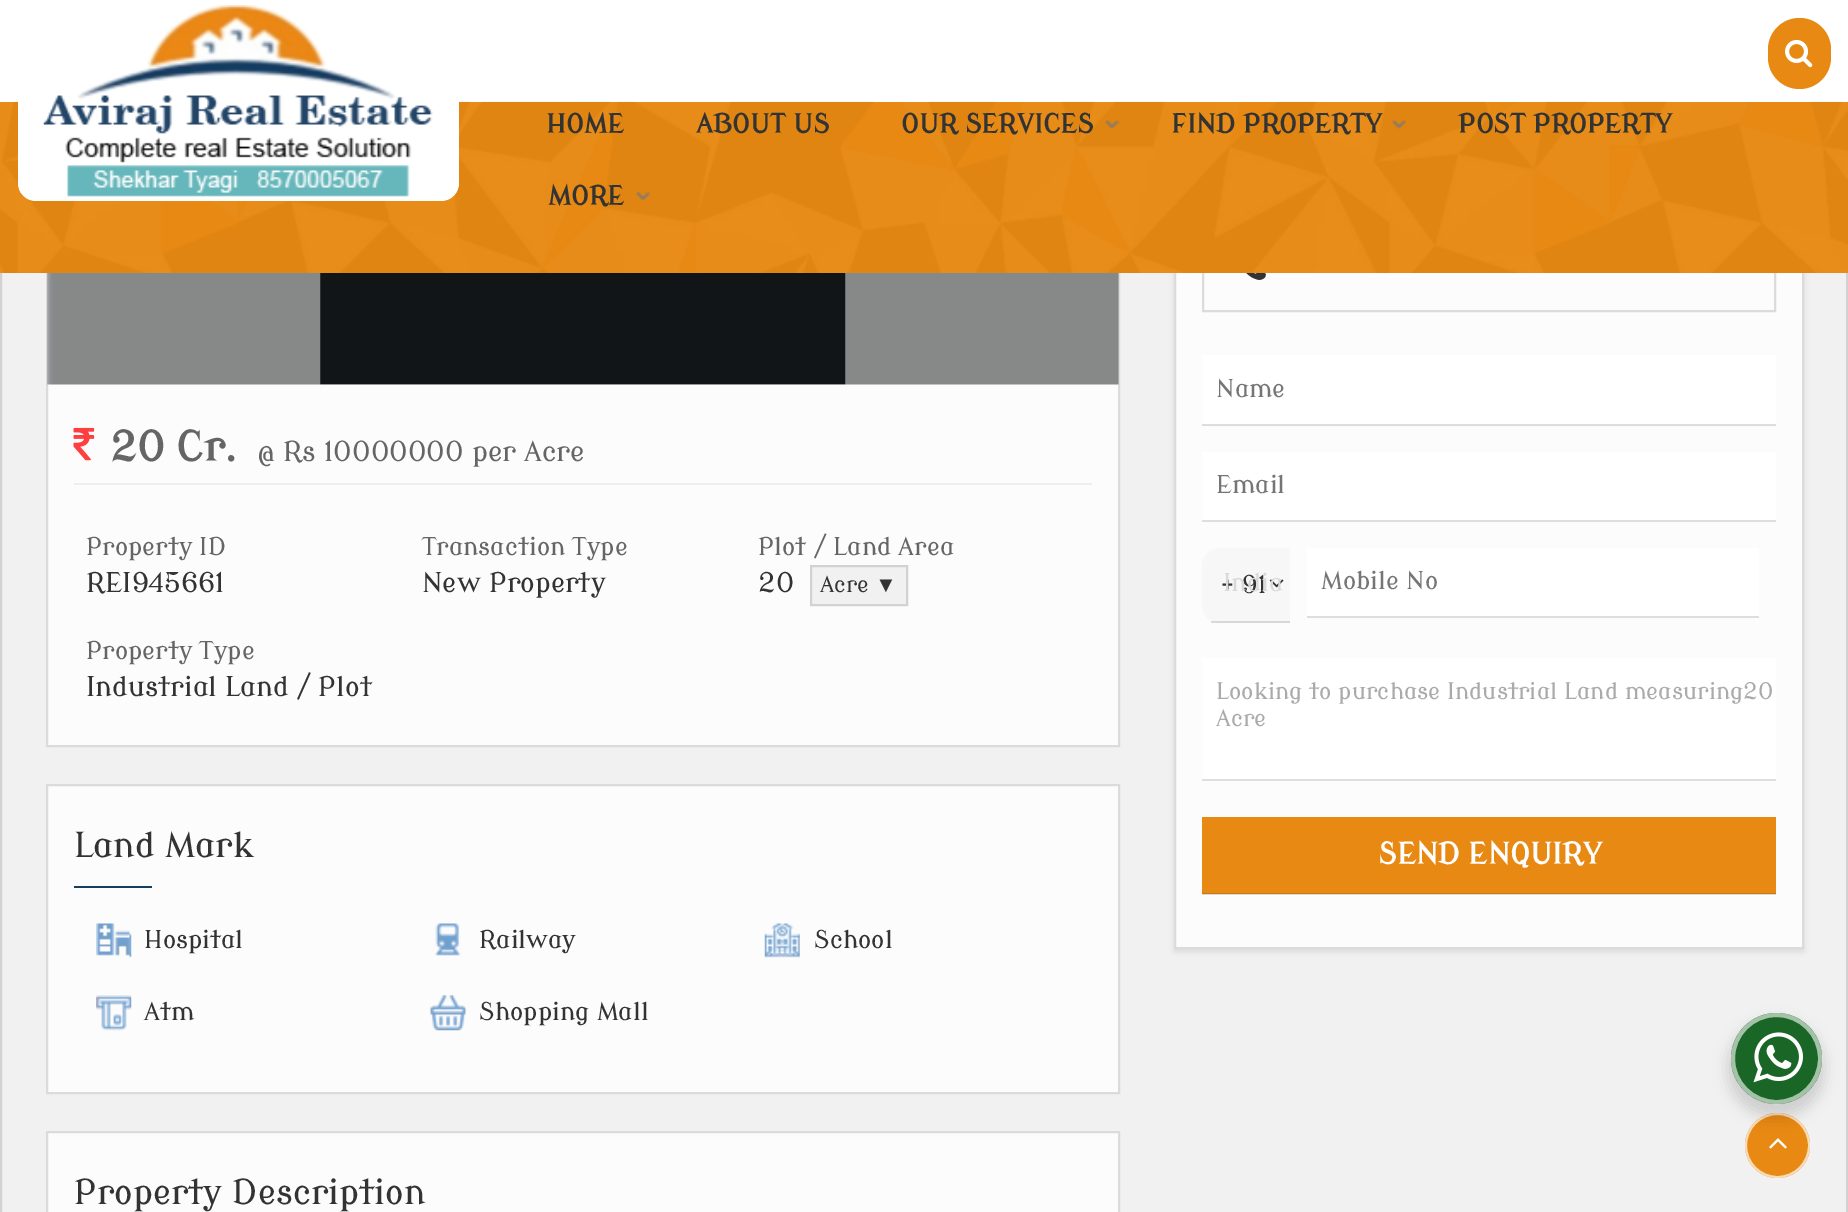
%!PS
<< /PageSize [1848 1212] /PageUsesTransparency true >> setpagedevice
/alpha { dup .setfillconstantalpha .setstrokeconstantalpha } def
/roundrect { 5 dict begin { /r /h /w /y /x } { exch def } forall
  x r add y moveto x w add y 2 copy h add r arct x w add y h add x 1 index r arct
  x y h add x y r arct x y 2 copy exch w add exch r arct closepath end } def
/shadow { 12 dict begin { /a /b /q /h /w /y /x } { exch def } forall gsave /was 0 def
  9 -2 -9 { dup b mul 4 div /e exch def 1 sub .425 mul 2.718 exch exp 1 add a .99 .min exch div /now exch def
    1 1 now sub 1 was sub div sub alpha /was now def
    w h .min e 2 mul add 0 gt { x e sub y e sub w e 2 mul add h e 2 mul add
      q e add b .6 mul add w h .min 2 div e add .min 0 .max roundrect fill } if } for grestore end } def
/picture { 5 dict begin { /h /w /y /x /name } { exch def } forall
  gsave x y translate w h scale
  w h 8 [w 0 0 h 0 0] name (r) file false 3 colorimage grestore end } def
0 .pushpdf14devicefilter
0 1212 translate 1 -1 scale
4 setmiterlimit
0.945 setgray
0 0 1848 1212 rectfill
0.824 setgray
2 setlinewidth
1 -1 1846 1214 rectstroke
0.988 setgray
48 273 1070 472 rectfill
0.859 setgray
47 -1 1072 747 rectstroke
(img6.rgb) 47 273 1072 112 picture
gsave
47 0 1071 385 rectclip
1 setgray
47 -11 1089 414 0 3.5 0.5 shadow
grestore
0 setgray
1174 91 630 861 0 2.5 0.08 shadow
0.988 setgray
1176 273 626 674 rectfill
0.859 setgray
1202 894 574 1 rectfill
1202 425 574 1 rectfill
1175 89 628 859 rectstroke
1 setgray
0 0 1848 102 rectfill
0.859 setgray
1203 230 572 81 rectstroke
0.906 0.537 0.071 setrgbcolor
0 102 1848 171 rectfill
(img1.rgb) 0 101 1848 172 picture
1 setgray
newpath 18 0 moveto 459 0 lineto 459 183 lineto 459 193 451 201 441 201 curveto 36 201 lineto 26 201 18 193 18 183 curveto closepath fill
(img2.rgb) 43 5 390 192 picture
0.906 0.537 0.071 setrgbcolor
1768 18 63 71 31.5 roundrect fill
(img3.rgb) 1785 39 28 29 picture
/ModernAntiqua-Bold [26.25 0 0 -26.25 0 0] selectfont
0.2 setgray
546 133 moveto (HOME) show
696 133 moveto (ABOUT US) show
901 133 moveto (OUR SERVICES) show
(img4.rgb) 1105 120 15 9 picture
1171 133 moveto (FIND PROPERTY) show
(img4.rgb) 1392 120 15 9 picture
1458 133 moveto (POST PROPERTY) show
548 205 moveto (MORE) show
(img5.rgb) 636 192 14 9 picture
(img7.rgb) 320 273 526 112 picture
0.933 setgray
74 483 1018 2 rectfill
(img8.rgb) 73 427 22 34 picture
/ModernAntiqua-Bold [41 0 0 -41 0 0] selectfont
0.396 setgray
110 461 moveto (20 Cr.) show
/ModernAntiqua-Regular [27.5 0 0 -27.5 0 0] selectfont
257 461 moveto (@ Rs 10000000 per Acre) show
/ModernAntiqua-Regular [24.5 0 0 -24.5 0 0] selectfont
86 555 moveto (Property ID) show
/ModernAntiqua-Regular [27 0 0 -27 0 0] selectfont
0.2 setgray
86 592 moveto (REI945661) show
/ModernAntiqua-Regular [24.5 0 0 -24.5 0 0] selectfont
0.396 setgray
422 555 moveto (Transaction Type) show
/ModernAntiqua-Regular [27 0 0 -27 0 0] selectfont
0.2 setgray
422 592 moveto (New Property) show
/ModernAntiqua-Regular [24.5 0 0 -24.5 0 0] selectfont
0.396 setgray
758 555 moveto (Plot / Land Area) show
/ModernAntiqua-Regular [27 0 0 -27 0 0] selectfont
0.2 setgray
758 592 moveto (20) show
0.945 setgray
newpath 811 566 moveto 907 566 lineto 907 605 lineto 811 605 lineto closepath gsave fill grestore
0.824 setgray
stroke
/ModernAntiqua-Regular [22 0 0 -22 0 0] selectfont
0.2 setgray
820 592 moveto (Acre) show
/LiberationSans-Regular [22 0 0 -22 0 0] selectfont
875 592 moveto (▼) show
/ModernAntiqua-Regular [24.5 0 0 -24.5 0 0] selectfont
0.396 setgray
86 659 moveto (Property Type) show
/ModernAntiqua-Regular [27 0 0 -27 0 0] selectfont
0.2 setgray
86 696 moveto (Industrial Land / Plot) show
0.988 setgray
newpath 47 785 moveto 1119 785 lineto 1119 1093 lineto 47 1093 lineto closepath gsave fill grestore
0.859 setgray
stroke
/ModernAntiqua-Regular [34.25 0 0 -34.25 0 0] selectfont
0.2 setgray
74 857 moveto (Land Mark) show
0.086 0.243 0.38 setrgbcolor
74 886 78 2 rectfill
(img9.rgb) 96 923 36 35 picture
/ModernAntiqua-Regular [24.5 0 0 -24.5 0 0] selectfont
0.2 setgray
144 948 moveto (Hospital) show
(img10.rgb) 435 923 26 33 picture
479 948 moveto (Railway) show
(img11.rgb) 764 923 36 35 picture
814 948 moveto (School) show
(img12.rgb) 96 995 36 36 picture
144 1020 moveto (Atm) show
(img13.rgb) 430 995 36 36 picture
479 1020 moveto (Shopping Mall) show
0.988 setgray
newpath 47 1132 moveto 1119 1132 lineto 1119 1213 lineto 47 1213 lineto closepath gsave fill grestore
0.859 setgray
stroke
/ModernAntiqua-Regular [34.25 0 0 -34.25 0 0] selectfont
0.2 setgray
74 1204 moveto (Property Description) show
(img14.rgb) 1246 273 20 7 picture
1 setgray
1202 355 574 69 rectfill
0.871 setgray
1202 424 574 1 rectfill
/ModernAntiqua-Regular [24.5 0 0 -24.5 0 0] selectfont
0.459 setgray
1216 397 moveto (Name) show
1 setgray
1202 452 574 68 rectfill
0.871 setgray
1202 520 574 2 rectfill
0.459 setgray
1216 493 moveto (Email) show
0.969 setgray
newpath 1220 548 moveto 1290 548 lineto 1290 623 lineto 1220 623 lineto 1210 623 1202 615 1202 605 curveto 1202 566 lineto 1202 556 1210 548 1220 548 curveto closepath fill
0.2 setgray
1220 593 moveto (+ 91) show
(img15.rgb) 1269 579 15 9 picture
0.851 setgray
1223 591 moveto (India) show
0.13 alpha
0 setgray
1211 621 79 2 rectfill
1 alpha
1 setgray
1307 548 452 68 rectfill
0.871 setgray
1307 616 452 2 rectfill
0.459 setgray
1321 589 moveto (Mobile No) show
1 setgray
1202 658 574 121 rectfill
0.871 setgray
1202 779 574 2 rectfill
/ModernAntiqua-Regular [22.75 0 0 -22.75 0 0] selectfont
0.667 setgray
1216 699 moveto (Looking to purchase Industrial Land measuring20) show
1216 726 moveto (Acre) show
0.906 0.537 0.071 setrgbcolor
1202 817 574 76 rectfill
0.788 0.467 0.063 setrgbcolor
1202 893 574 1 rectfill
/ModernAntiqua-Bold [29.5 0 0 -29.5 0 0] selectfont
1 setgray
1378 864 moveto (SEND ENQUIRY) show
0.906 0.537 0.071 setrgbcolor
newpath 1777.5 1145.5 32.5 0 360 arc closepath fill
0.7 alpha
1 setgray
newpath 1777.5 1145.5 31.5 0 360 arc closepath stroke
1 alpha
(img17.rgb) 1769 1138 18 11 picture
0 setgray
1727 1020 98 98 49 7 0.14 shadow
0.098 0.4 0.149 setrgbcolor
newpath 1776.5 1058.5 45.5 0 360 arc closepath fill
0.6 alpha
1 setgray
4 setlinewidth
newpath 1776.5 1058.5 43.5 0 360 arc closepath stroke
1 alpha
(img16.rgb) 1753 1032 50 51 picture
.poppdf14devicefilter showpage
